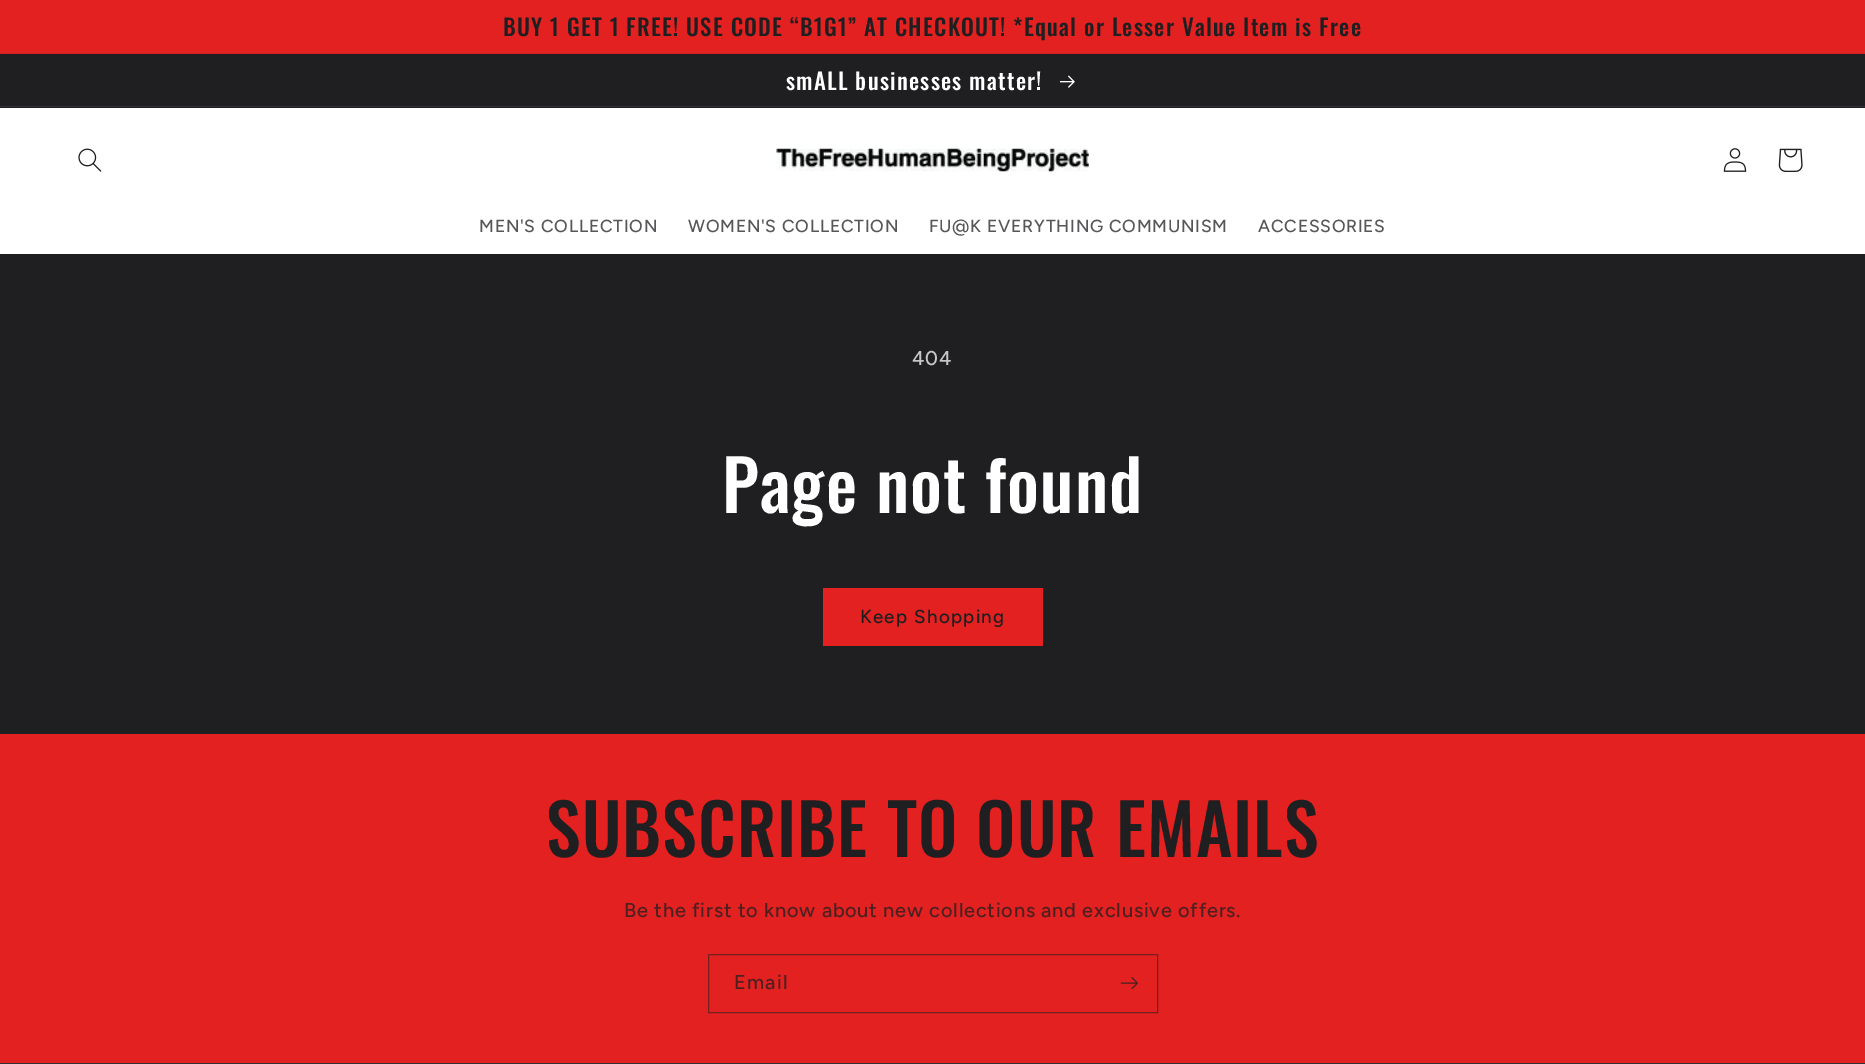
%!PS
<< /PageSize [1865 1064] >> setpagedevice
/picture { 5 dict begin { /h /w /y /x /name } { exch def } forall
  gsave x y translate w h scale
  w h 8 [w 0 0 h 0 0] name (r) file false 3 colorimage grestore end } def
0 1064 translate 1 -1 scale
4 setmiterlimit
0.122 0.122 0.129 setrgbcolor
0 0 1865 1064 rectfill
0.886 0.129 0.125 setrgbcolor
0 0 1865 53 rectfill
0.824 0.129 0.125 setrgbcolor
0 53 1865 1 rectfill
/Oswald-Medium [22.75 0 0 -22.75 0 0] selectfont
0.122 0.122 0.129 setrgbcolor
503 36 moveto 1.25 0 (BUY 1 GET 1 FREE! USE CODE “B1G1” AT CHECKOUT! *Equal or Lesser Value Item is Free) ashow
0.192 0.192 0.2 setrgbcolor
0 106 1865 1 rectfill
1 setgray
786 90 moveto 1.25 0 (smALL businesses matter!) ashow
(img1.rgb) 1060 75 15 13 picture
0 108 1865 146 rectfill
(img2.rgb) 78 148 24 24 picture
(img3.rgb) 776 148 313 24 picture
(img4.rgb) 1723 148 24 24 picture
(img5.rgb) 1778 148 25 24 picture
/Figtree-Medium [17.5 0 0 -17.5 0 0] selectfont
0.341 0.341 0.349 setrgbcolor
479 232 moveto 0.75 0 (MEN'S COLLECTION) ashow
688 232 moveto 0.75 0 (WOMEN'S COLLECTION) ashow
929 232 moveto 0.75 0 (FU@K EVERYTHING COMMUNISM) ashow
1258 232 moveto 0.75 0 (ACCESSORIES) ashow
/Figtree-Medium [20 0 0 -20 0 0] selectfont
0.78 0.78 0.784 setrgbcolor
912 365 moveto 0.75 0 (404) ashow
/Oswald-Medium [70 0 0 -70 0 0] selectfont
1 setgray
722 513 moveto 1.05 0 (Page not found) ashow
0.886 0.129 0.125 setrgbcolor
823 588 220 58 rectfill
/Figtree-Medium [18.75 0 0 -18.75 0 0] selectfont
0.122 0.122 0.129 setrgbcolor
860 623 moveto 1.25 0 (Keep Shopping) ashow
0.886 0.129 0.125 setrgbcolor
0 734 1865 329 rectfill
/Oswald-Medium [70 0 0 -70 0 0] selectfont
0.122 0.122 0.129 setrgbcolor
546 857 moveto 1.05 0 (SUBSCRIBE TO OUR EMAILS) ashow
/Figtree-Medium [20 0 0 -20 0 0] selectfont
0.314 0.125 0.129 setrgbcolor
624 917 moveto 0.75 0 (Be the first to know about new collections and exclusive offers.) ashow
0.467 0.125 0.129 setrgbcolor
708.5 954.5 449 58 rectstroke
0.314 0.125 0.129 setrgbcolor
734 989 moveto 1.25 0 (Email) ashow
(img6.rgb) 1120 977 18 13 picture
0.192 0.192 0.2 setrgbcolor
0 1063 1865 1 rectfill
showpage
